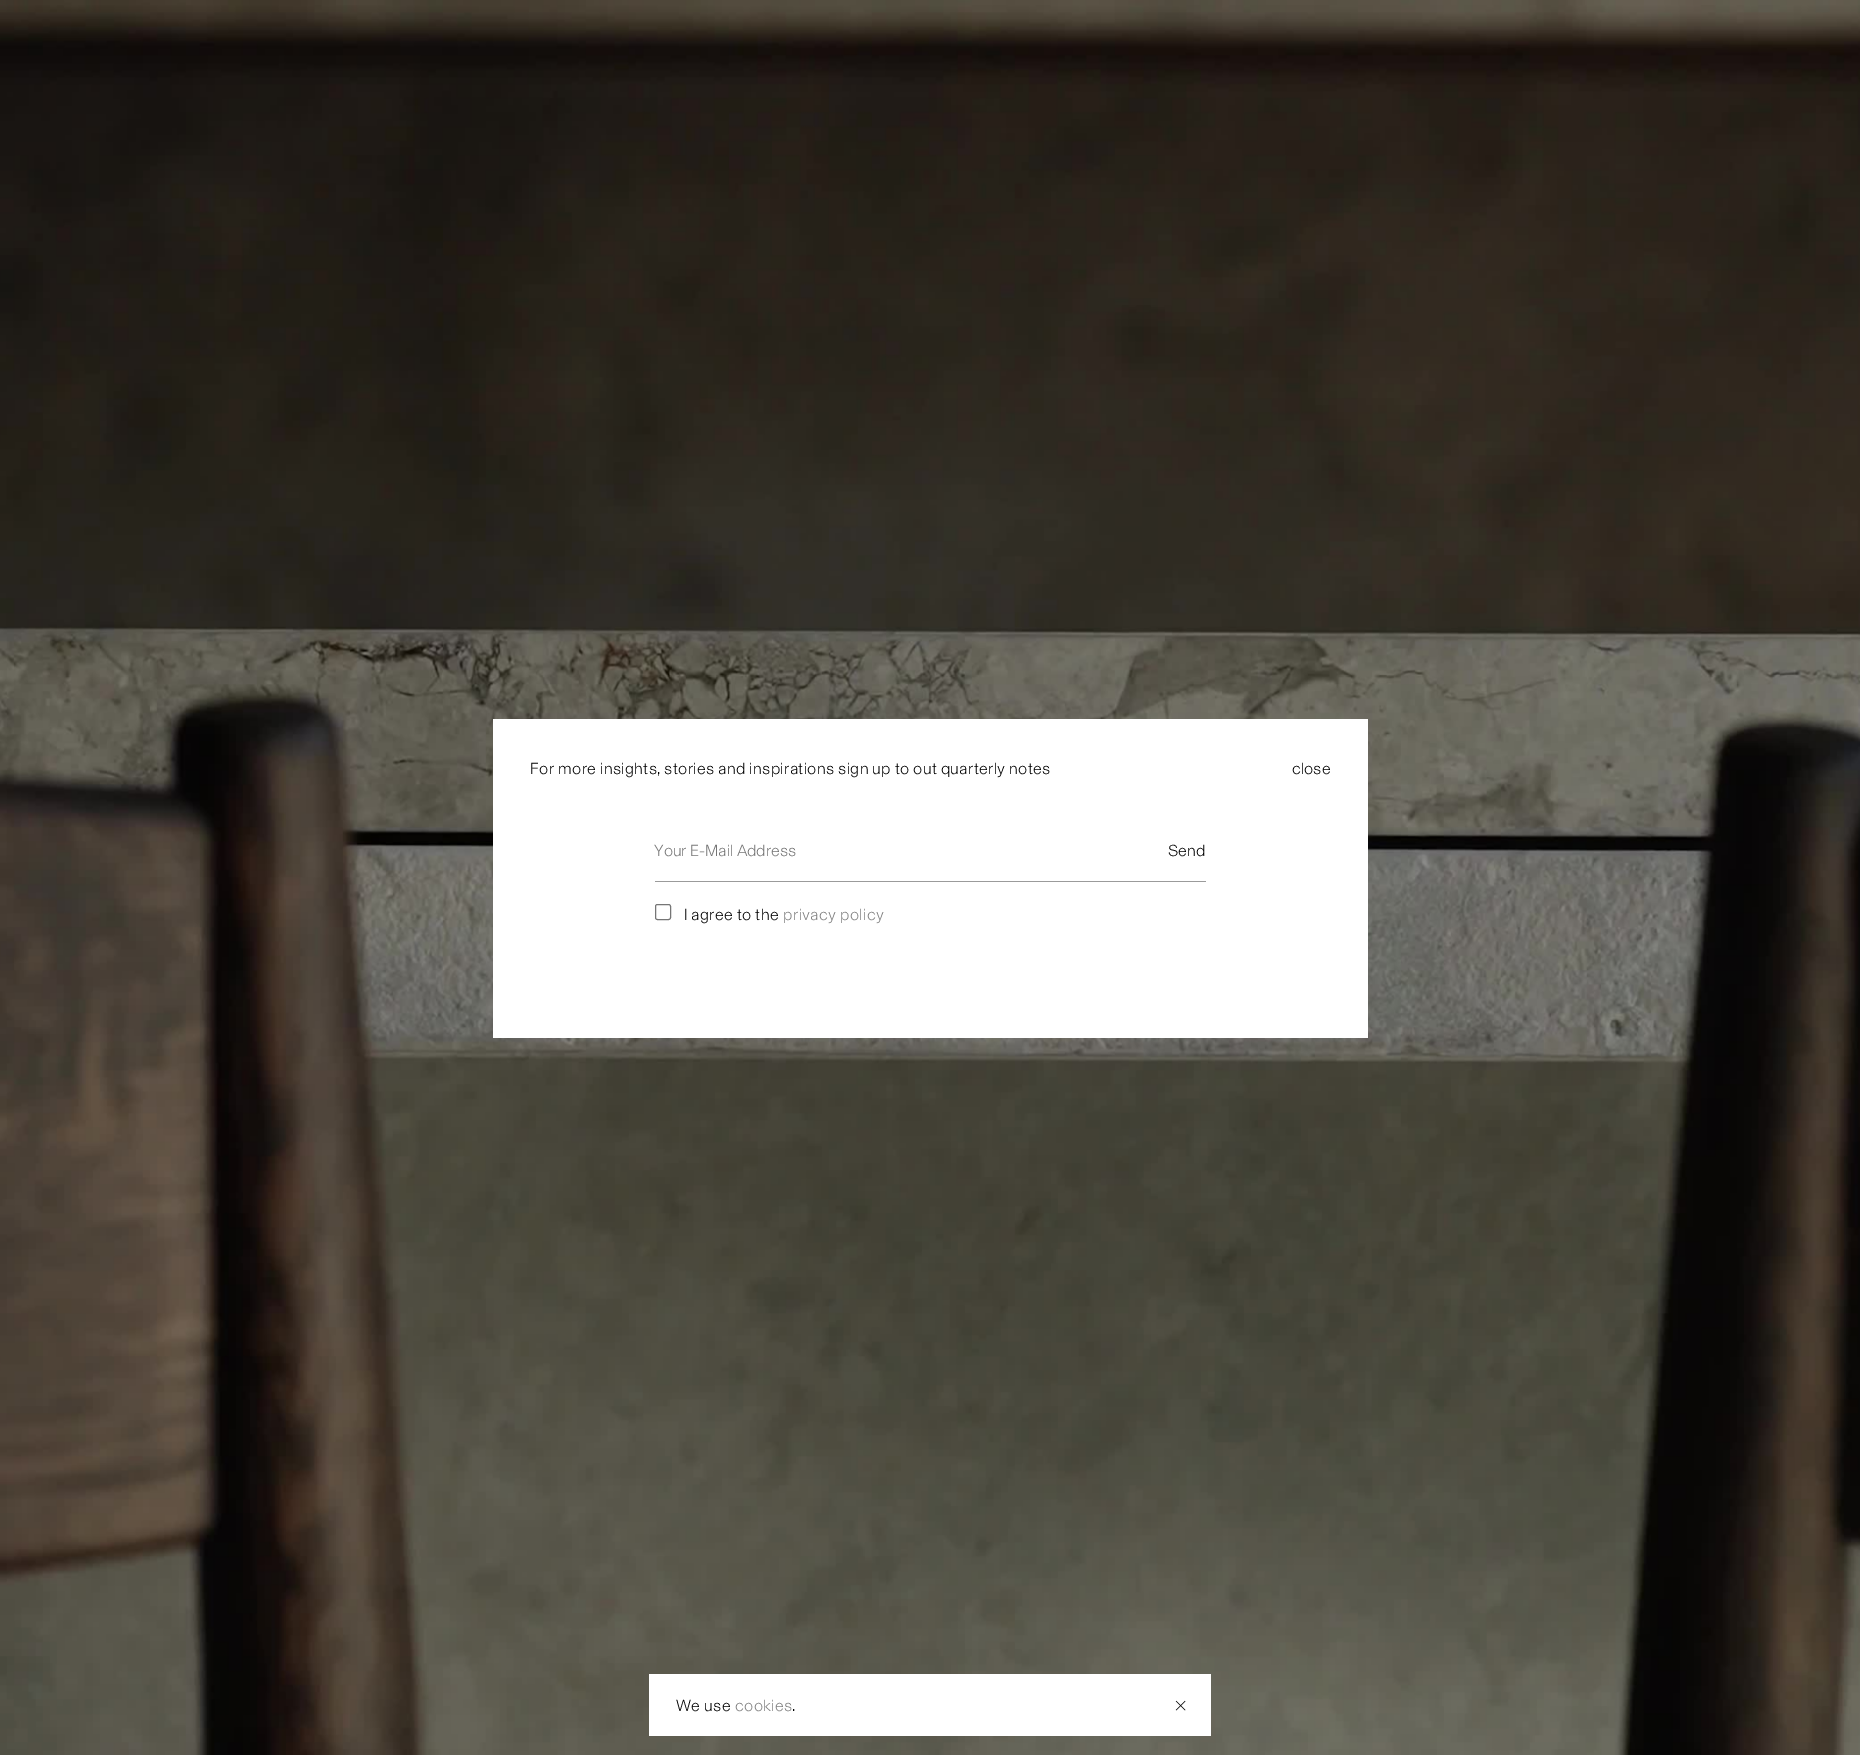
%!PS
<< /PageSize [1860 1755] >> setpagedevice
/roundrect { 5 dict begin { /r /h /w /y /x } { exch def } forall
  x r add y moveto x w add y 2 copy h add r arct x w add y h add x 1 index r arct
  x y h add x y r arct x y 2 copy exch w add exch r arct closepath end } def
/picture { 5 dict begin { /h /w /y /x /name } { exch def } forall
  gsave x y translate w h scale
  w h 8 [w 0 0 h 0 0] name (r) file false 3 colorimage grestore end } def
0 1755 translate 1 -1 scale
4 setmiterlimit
1 setgray
0 0 1860 1755 rectfill
(img1.rgb) 0 0 1860 1755 picture
493 719 875 319 rectfill
/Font-Regular [16.25 0 0 -16.25 0 0] selectfont
0 setgray
530 774 moveto 0.33 0 (For more insights, stories and inspirations sign up to out quarterly notes) ashow
1292 774 moveto (close) show
0.608 setgray
655 881 551 1 rectfill
0.459 setgray
654 856 moveto (Your E-Mail Address) show
0 setgray
1168 856 moveto (Send) show
0.463 setgray
655.5 904.5 15 15 2 roundrect stroke
0 setgray
684 920 moveto 0.33 0 (I agree to the) ashow
0.506 setgray
783 920 moveto 0.33 0 (privacy policy) ashow
1 setgray
649 1674 562 62 rectfill
0 setgray
676 1711 moveto 0.33 0 (We use) ashow
0.506 setgray
735 1711 moveto 0.33 0 (cookies) ashow
0 setgray
792 1711 moveto 0.33 0 (.) ashow
(img2.rgb) 1175 1700 11 11 picture
showpage
